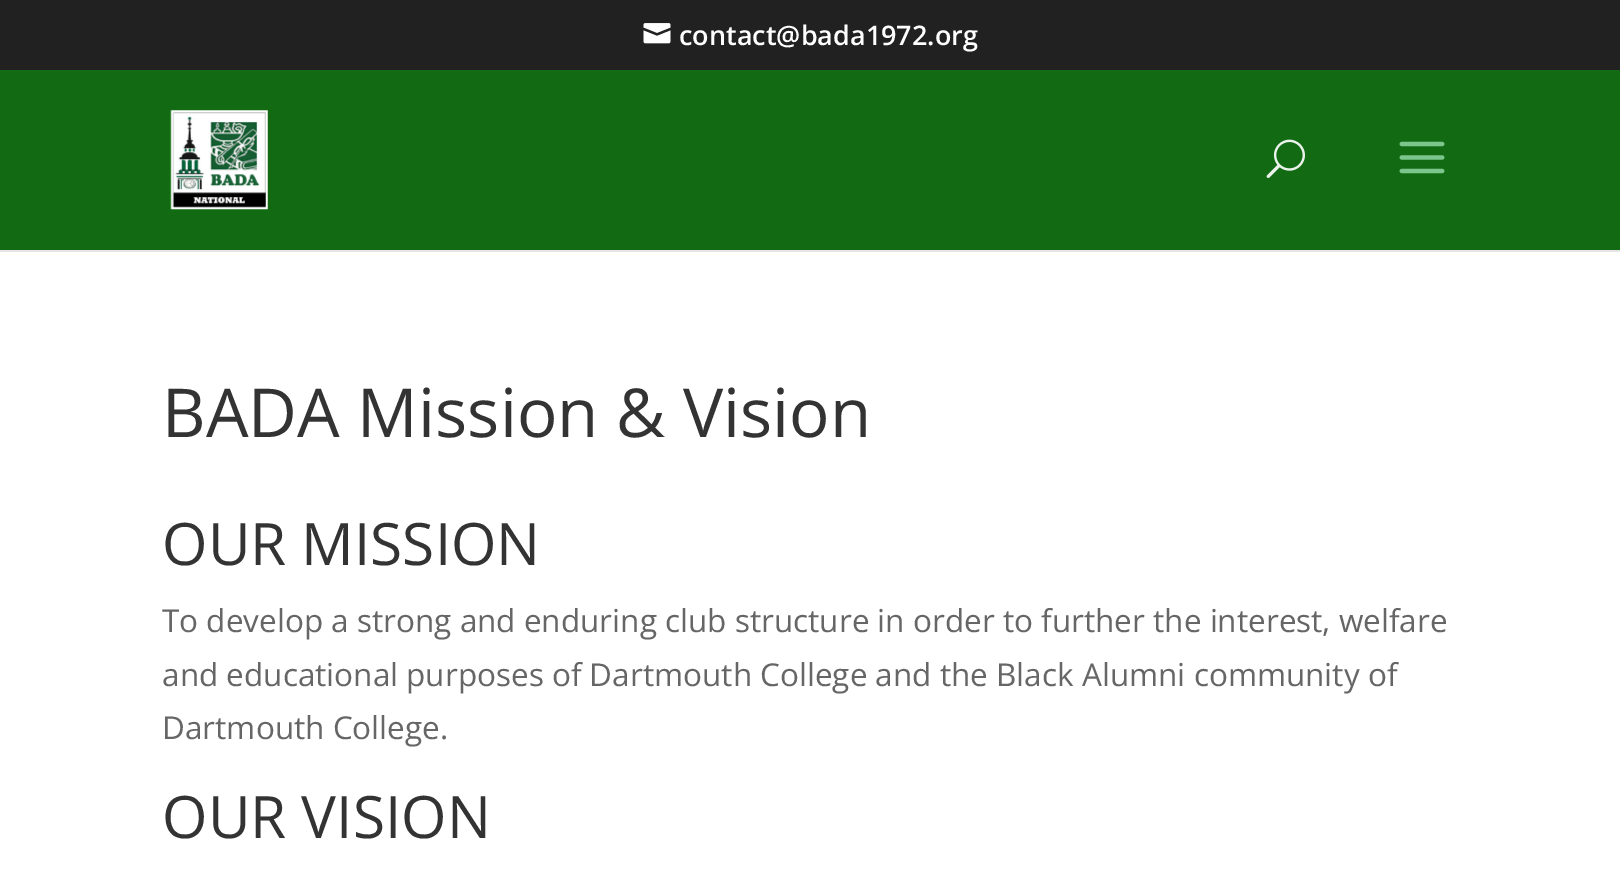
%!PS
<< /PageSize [1620 879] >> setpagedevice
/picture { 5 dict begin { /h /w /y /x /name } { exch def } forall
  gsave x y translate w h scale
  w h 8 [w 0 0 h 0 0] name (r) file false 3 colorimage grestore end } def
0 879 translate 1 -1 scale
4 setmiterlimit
1 setgray
0 0 1620 879 rectfill
0.129 setgray
0 0 1620 70 rectfill
(img1.rgb) 643 23 28 21 picture
/OpenSans-SemiBold [27 0 0 -27 0 0] selectfont
1 setgray
679 45 moveto (contact@bada1972.org) show
0.902 setgray
0 250 1620 2 rectfill
0.071 0.42 0.075 setrgbcolor
0 70 1620 180 rectfill
(img2.rgb) 170 110 98 100 picture
(img3.rgb) 1266 139 39 39 picture
(img4.rgb) 1399 141 46 33 picture
/OpenSans-Regular [67.5 0 0 -67.5 0 0] selectfont
0.2 setgray
162 437 moveto (BADA Mission & Vision) show
/OpenSans-Regular [58.5 0 0 -58.5 0 0] selectfont
162 565 moveto (OUR MISSION) show
/OpenSans-Regular [31.5 0 0 -31.5 0 0] selectfont
0.4 setgray
162 632 moveto (To develop a strong and enduring club structure in order to further the interest, welfare) show
162 686 moveto (and educational purposes of Dartmouth College and the Black Alumni community of) show
162 739 moveto (Dartmouth College.) show
/OpenSans-Regular [58.5 0 0 -58.5 0 0] selectfont
0.2 setgray
162 838 moveto (OUR VISION) show
showpage
